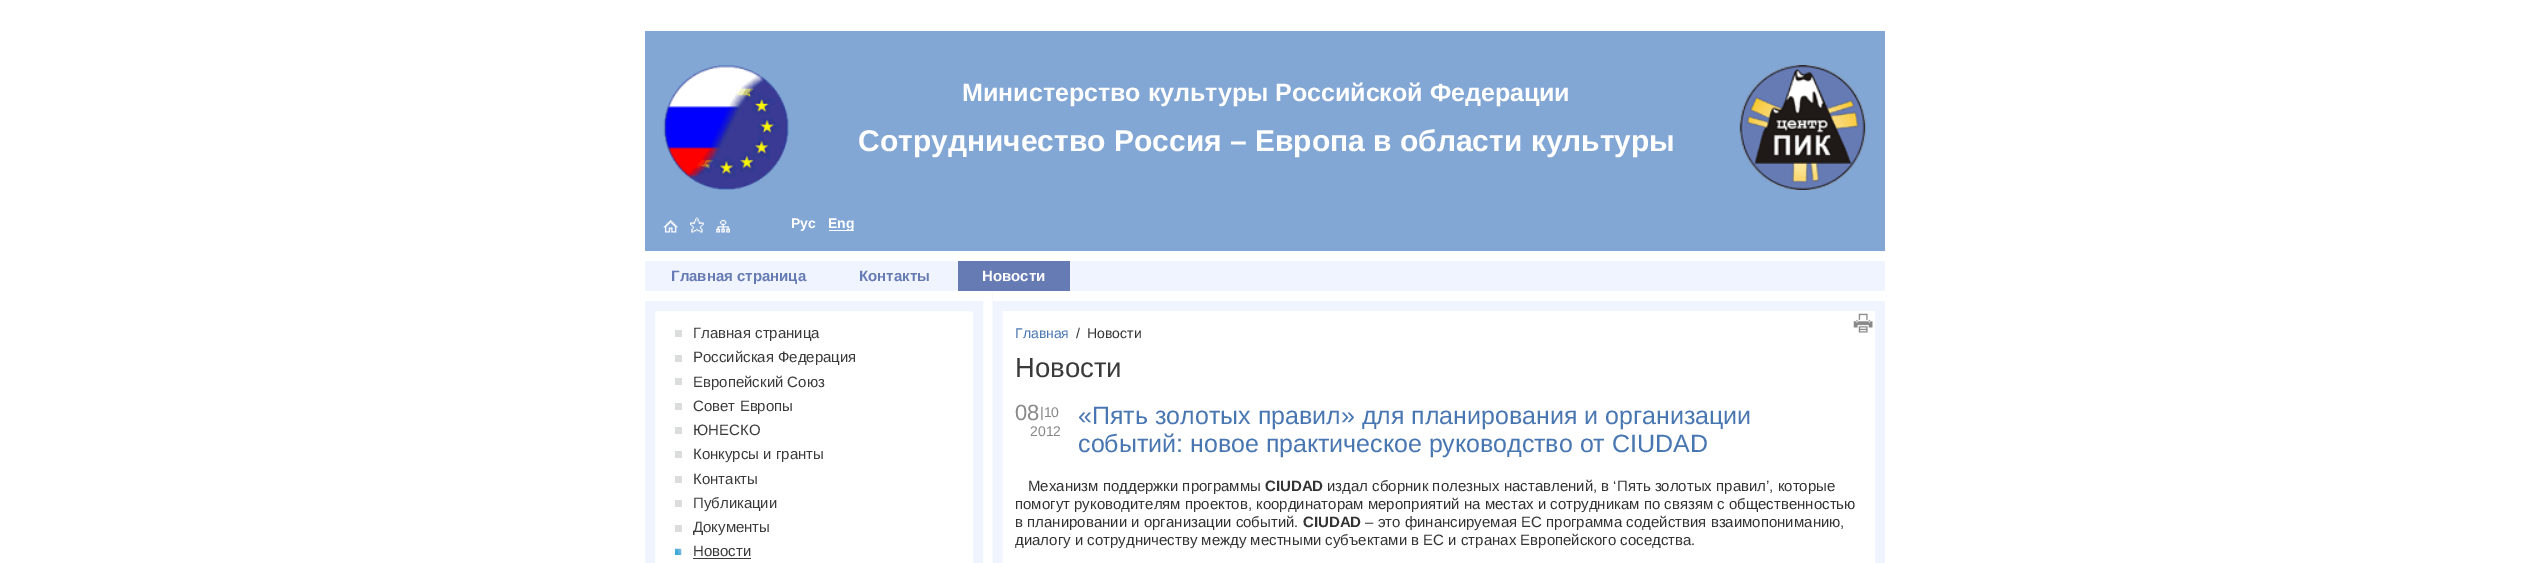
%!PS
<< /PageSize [2529 563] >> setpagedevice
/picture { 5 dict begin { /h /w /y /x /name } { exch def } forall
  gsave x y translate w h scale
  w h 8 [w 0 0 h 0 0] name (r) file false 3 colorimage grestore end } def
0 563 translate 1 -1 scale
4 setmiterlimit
1 setgray
0 0 2529 563 rectfill
(img1.rgb) 992 291 893 272 picture
0.514 0.655 0.835 setrgbcolor
645 31 1240 220 rectfill
(img2.rgb) 663 65 126 125 picture
/LiberationSans-Bold [25 0 0 -25 0 0] selectfont
1 setgray
962 101 moveto (Министерство культуры Российской Федерации) show
/LiberationSans-Bold [30 0 0 -30 0 0] selectfont
858 151 moveto (Сотрудничество Россия – Европа в области культуры) show
(img3.rgb) 1739 65 128 125 picture
(img4.rgb) 663 219 15 14 picture
(img5.rgb) 690 217 14 16 picture
(img6.rgb) 716 219 14 14 picture
/LiberationSans-Bold [14 0 0 -14 0 0] selectfont
791 228 moveto (Рус) show
829 230 25 1 rectfill
828 228 moveto (Eng) show
0.941 0.957 1 setrgbcolor
645 261 1240 30 rectfill
/LiberationSans-Bold [15 0 0 -15 0 0] selectfont
0.4 0.478 0.702 setrgbcolor
671 281 moveto (Главная страница) show
859 281 moveto (Контакты) show
958 261 112 30 rectfill
1 setgray
982 281 moveto (Новости) show
0.941 0.957 1 setrgbcolor
10 setlinewidth
650 306 328 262 rectstroke
0.859 0.863 0.863 setrgbcolor
675 330 7 7 rectfill
/LiberationSans-Regular [15 0 0 -15 0 0] selectfont
0.227 setgray
693 338 moveto (Главная страница) show
0.859 0.863 0.863 setrgbcolor
675 355 7 7 rectfill
0.227 setgray
693 362 moveto (Российская Федерация) show
0.859 0.863 0.863 setrgbcolor
675 378 7 7 rectfill
0.227 setgray
693 387 moveto (Европейский Союз) show
0.859 0.863 0.863 setrgbcolor
675 403 7 7 rectfill
0.227 setgray
693 411 moveto (Совет Европы) show
0.859 0.863 0.863 setrgbcolor
675 427 7 7 rectfill
0.227 setgray
693 435 moveto (ЮНЕСКО) show
0.859 0.863 0.863 setrgbcolor
675 451 7 7 rectfill
0.227 setgray
693 459 moveto (Конкурсы и гранты) show
0.859 0.863 0.863 setrgbcolor
675 476 7 7 rectfill
0.227 setgray
693 484 moveto (Контакты) show
0.859 0.863 0.863 setrgbcolor
675 500 7 7 rectfill
0.227 setgray
693 508 moveto (Публикации) show
0.859 0.863 0.863 setrgbcolor
675 525 7 7 rectfill
0.227 setgray
693 532 moveto (Документы) show
(img7.rgb) 675 548 7 7 picture
693 556 moveto (Новости) show
693 558 58 1 rectfill
1 setgray
993 291 892 10 rectfill
0.941 0.957 1 setrgbcolor
1002 301 873 10 rectfill
/LiberationSans-Regular [14 0 0 -14 0 0] selectfont
0.282 0.463 0.694 setrgbcolor
1015 338 moveto (Главная) show
0.2 setgray
1076 338 moveto (/) show
1087 338 moveto (Новости) show
(img8.rgb) 1853 313 20 20 picture
/LiberationSans-Regular [27.5 0 0 -27.5 0 0] selectfont
0.227 setgray
1015 377 moveto (Новости) show
/LiberationSans-Regular [22 0 0 -22 0 0] selectfont
0.533 setgray
1015 420 moveto (08) show
/LiberationSans-Regular [14 0 0 -14 0 0] selectfont
1040 417 moveto (|10) show
1030 436 moveto (2012) show
/LiberationSans-Regular [25 0 0 -25 0 0] selectfont
0.282 0.463 0.694 setrgbcolor
1078 424 moveto («Пять золотых правил» для планирования и организации) show
1078 452 moveto (событий: новое практическое руководство от CIUDAD) show
/LiberationSans-Regular [15 0 0 -15 0 0] selectfont
0.2 setgray
1028 491 moveto (Механизм поддержки программы) show
/LiberationSans-Bold [15 0 0 -15 0 0] selectfont
1265 491 moveto (CIUDAD) show
/LiberationSans-Regular [15 0 0 -15 0 0] selectfont
1327 491 moveto (издал сборник полезных наставлений, в ‘Пять золотых правил’, которые) show
1015 509 moveto (помогут руководителям проектов, координаторам мероприятий на местах и сотрудникам по связям с общественностью) show
1015 527 moveto (в планировании и организации событий.) show
/LiberationSans-Bold [15 0 0 -15 0 0] selectfont
1303 527 moveto (CIUDAD) show
/LiberationSans-Regular [15 0 0 -15 0 0] selectfont
1365 527 moveto (– это финансируемая ЕС программа содействия взаимопониманию,) show
1015 545 moveto (диалогу и сотрудничеству между местными субъектами в ЕС и странах Европейского соседства.) show
showpage
